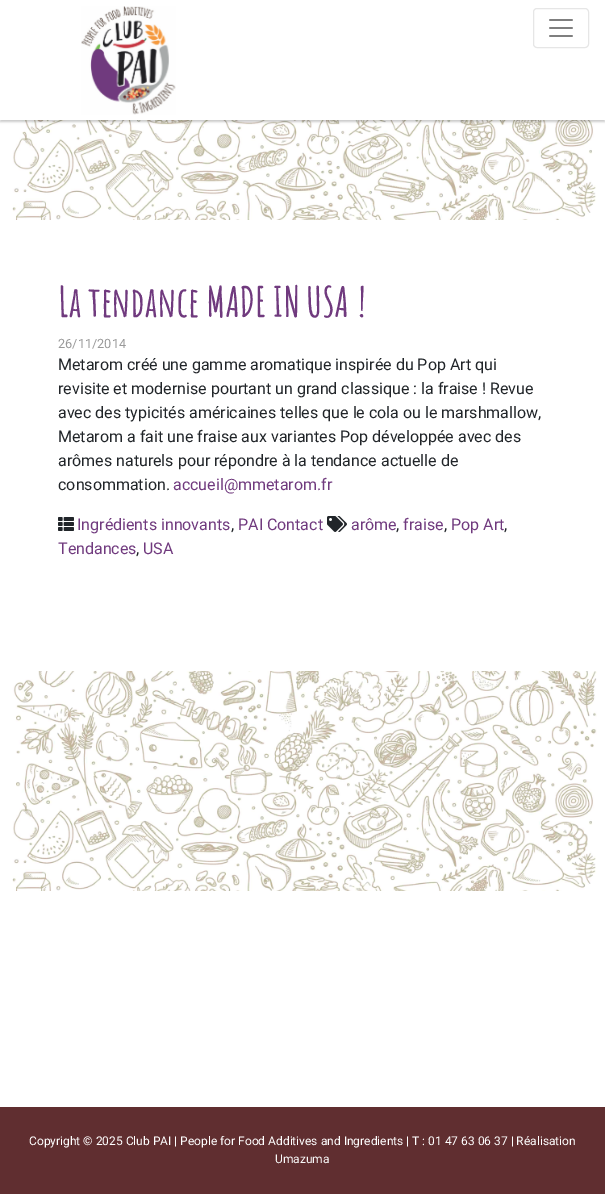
%!PS
<< /PageSize [605 1194] /PageUsesTransparency true >> setpagedevice
/alpha { dup .setfillconstantalpha .setstrokeconstantalpha } def
/roundrect { 5 dict begin { /r /h /w /y /x } { exch def } forall
  x r add y moveto x w add y 2 copy h add r arct x w add y h add x 1 index r arct
  x y h add x y r arct x y 2 copy exch w add exch r arct closepath end } def
/shadow { 12 dict begin { /a /b /q /h /w /y /x } { exch def } forall gsave /was 0 def
  9 -2 -9 { dup b mul 4 div /e exch def 1 sub .425 mul 2.718 exch exp 1 add a .99 .min exch div /now exch def
    1 1 now sub 1 was sub div sub alpha /was now def
    w h .min e 2 mul add 0 gt { x e sub y e sub w e 2 mul add h e 2 mul add
      q e add b .6 mul add w h .min 2 div e add .min 0 .max roundrect fill } if } for grestore end } def
/picture { 5 dict begin { /h /w /y /x /name } { exch def } forall
  gsave x y translate w h scale
  w h 8 [w 0 0 h 0 0] name (r) file false 3 colorimage grestore end } def
0 .pushpdf14devicefilter
0 1194 translate 1 -1 scale
4 setmiterlimit
1 setgray
0 0 605 1194 rectfill
(img3.rgb) 12 120 585 100 picture
0 setgray
0 2 605 120 0 1 0.2 shadow
1 setgray
0 0 605 120 rectfill
(img1.rgb) 81 6 95 109 picture
0.902 setgray
533.5 8.5 55 39 3.5 roundrect stroke
(img2.rgb) 549 19 24 18 picture
/AmaticSC-Bold [40 0 0 -40 0 0] selectfont
0.439 0.227 0.494 setrgbcolor
58 317 moveto 0.4 0 (La tendance MADE IN USA !) ashow
/Roboto-Regular [12.75 0 0 -12.75 0 0] selectfont
0.6 setgray
58 348 moveto (26/11/2014) show
/Roboto-Regular [16 0 0 -16 0 0] selectfont
0.129 0.145 0.161 setrgbcolor
58 370 moveto (Metarom créé une gamme aromatique inspirée du Pop Art qui) show
58 394 moveto (revisite et modernise pourtant un grand classique : la fraise ! Revue) show
58 418 moveto (avec des typicités américaines telles que le cola ou le marshmallow,) show
58 442 moveto (Metarom a fait une fraise aux variantes Pop développée avec des) show
58 466 moveto (arômes naturels pour répondre à la tendance actuelle de) show
58 490 moveto (consommation.) show
0.439 0.227 0.494 setrgbcolor
173 490 moveto (accueil@mmetarom.fr) show
(img4.rgb) 327 516 20 16 picture
351 530 moveto (arôme) show
0.129 0.145 0.161 setrgbcolor
396 530 moveto (,) show
0.439 0.227 0.494 setrgbcolor
403 530 moveto (fraise) show
0.129 0.145 0.161 setrgbcolor
444 530 moveto (,) show
0.439 0.227 0.494 setrgbcolor
451 530 moveto (Pop Art) show
0.129 0.145 0.161 setrgbcolor
504 530 moveto (,) show
0.439 0.227 0.494 setrgbcolor
58 554 moveto (Tendances) show
0.129 0.145 0.161 setrgbcolor
136 554 moveto (,) show
0.439 0.227 0.494 setrgbcolor
143 554 moveto (USA) show
(img5.rgb) 58 517 16 14 picture
77 530 moveto (Ingrédients innovants) show
0.129 0.145 0.161 setrgbcolor
231 530 moveto (,) show
0.439 0.227 0.494 setrgbcolor
238 530 moveto (PAI Contact) show
(img6.rgb) 12 671 585 220 picture
0.376 0.18 0.188 setrgbcolor
0 1107 605 87 rectfill
/Roboto-Regular [12 0 0 -12 0 0] selectfont
1 setgray
29 1145 moveto (Copyright © 2025 Club PAI | People for Food Additives and Ingredients | T : 01 47 63 06 37 | Réalisation) show
0.973 setgray
275 1163 moveto (Umazuma) show
.poppdf14devicefilter showpage
